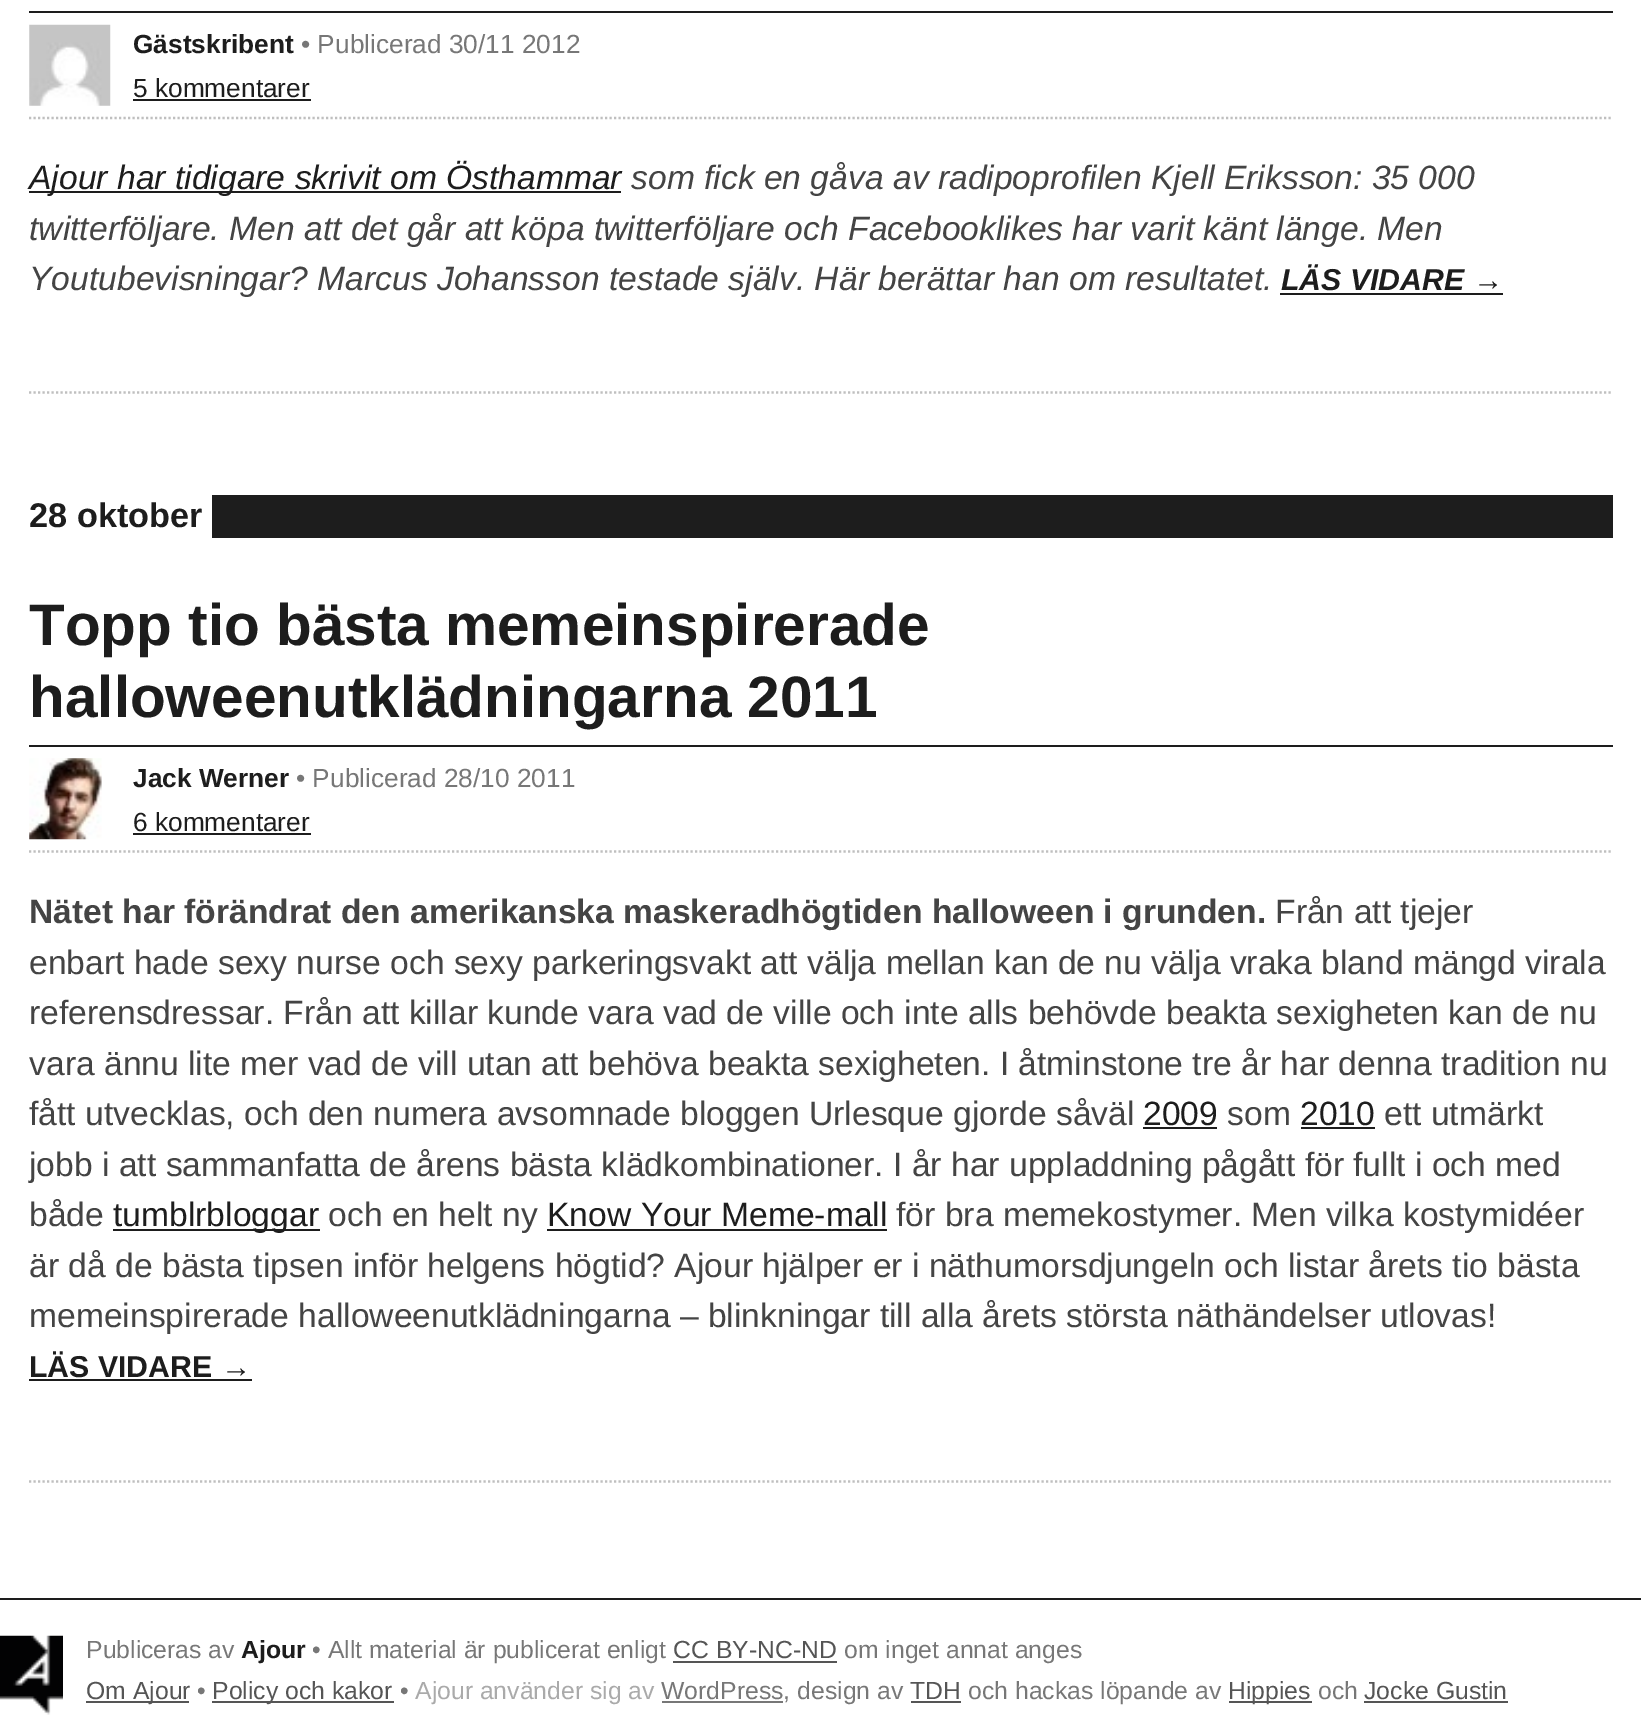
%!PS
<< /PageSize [1641 1719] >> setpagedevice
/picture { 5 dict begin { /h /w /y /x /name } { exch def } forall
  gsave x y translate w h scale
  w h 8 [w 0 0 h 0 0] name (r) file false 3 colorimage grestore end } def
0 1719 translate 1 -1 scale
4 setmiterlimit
1 setgray
0 0 1641 1719 rectfill
0.749 setgray
2.2 setlinewidth
[2.25 2.25] 0 setdash
newpath 29 392.5 moveto 1613 392.5 lineto stroke
0.114 setgray
29 11 1584 2 rectfill
0.749 setgray
newpath 29 118 moveto 1613 118 lineto stroke
(img1.rgb) 29 24 82 82 picture
/LiberationSans-Bold [26.25 0 0 -26.25 0 0] selectfont
0.114 setgray
133 53 moveto (Gästskribent) show
/LiberationSans-Regular [26.25 0 0 -26.25 0 0] selectfont
0.467 setgray
301 53 moveto (• Publicerad 30/11 2012) show
0.114 setgray
133 97 moveto (5 kommentarer) show
133 99 178 2 rectfill
29 191 592 2 rectfill
/LiberationSans-Italic [33.65 0 0 -33.65 0 0] selectfont
29 189 moveto (Ajour har tidigare skrivit om Östhammar) show
0.267 setgray
631 189 moveto (som fick en gåva av radipoprofilen Kjell Eriksson: 35 000) show
29 240 moveto (twitterföljare. Men att det går att köpa twitterföljare och Facebooklikes har varit känt länge. Men) show
29 290 moveto (Youtubevisningar? Marcus Johansson testade själv. Här berättar han om resultatet.) show
/LiberationSans-BoldItalic [30.25 0 0 -30.25 0 0] selectfont
0.114 setgray
1281 290 moveto (LÄS VIDARE →) show
1280 293 223 2 rectfill
212 495 1401 43 rectfill
/LiberationSans-Bold [34.25 0 0 -34.25 0 0] selectfont
29 527 moveto (28 oktober) show
0.749 setgray
newpath 29 1481.5 moveto 1613 1481.5 lineto stroke
0.114 setgray
29 745 1584 2 rectfill
/LiberationSans-Bold [58.5 0 0 -58.5 0 0] selectfont
29 645 moveto (Topp tio bästa memeinspirerade) show
29 717 moveto (halloweenutklädningarna 2011) show
0.749 setgray
newpath 29 851.5 moveto 1613 851.5 lineto stroke
(img2.rgb) 29 758 73 82 picture
/LiberationSans-Bold [26.25 0 0 -26.25 0 0] selectfont
0.114 setgray
133 787 moveto (Jack Werner) show
/LiberationSans-Regular [26.25 0 0 -26.25 0 0] selectfont
0.467 setgray
296 787 moveto (• Publicerad 28/10 2011) show
0.114 setgray
133 831 moveto (6 kommentarer) show
133 833 178 2 rectfill
/LiberationSans-Bold [33.65 0 0 -33.65 0 0] selectfont
0.267 setgray
29 923 moveto -0.1 0 32 (Nätet har förändrat den amerikanska maskeradhögtiden halloween i grunden.) widthshow
/LiberationSans-Regular [33.65 0 0 -33.65 0 0] selectfont
1275 923 moveto (Från att tjejer) show
29 974 moveto (enbart hade sexy nurse och sexy parkeringsvakt att välja mellan kan de nu välja vraka bland mängd virala) show
29 1024 moveto (referensdressar. Från att killar kunde vara vad de ville och inte alls behövde beakta sexigheten kan de nu) show
29 1075 moveto (vara ännu lite mer vad de vill utan att behöva beakta sexigheten. I åtminstone tre år har denna tradition nu) show
29 1125 moveto (fått utvecklas, och den numera avsomnade bloggen Urlesque gjorde såväl) show
0.114 setgray
1143 1125 moveto (2009) show
1143 1127 74 2 rectfill
0.267 setgray
1227 1125 moveto (som) show
0.114 setgray
1300 1125 moveto (2010) show
1301 1127 74 2 rectfill
0.267 setgray
1384 1125 moveto (ett utmärkt) show
29 1176 moveto (jobb i att sammanfatta de årens bästa klädkombinationer. I år har uppladdning pågått för fullt i och med) show
29 1226 moveto (både) show
0.114 setgray
113 1229 207 2 rectfill
113 1226 moveto (tumblrbloggar) show
0.267 setgray
328 1226 moveto (och en helt ny) show
0.114 setgray
547 1226 moveto (Know Your Meme-mall) show
547 1229 340 2 rectfill
0.267 setgray
896 1226 moveto (för bra memekostymer. Men vilka kostymidéer) show
29 1277 moveto (är då de bästa tipsen inför helgens högtid? Ajour hjälper er i näthumorsdjungeln och listar årets tio bästa) show
29 1327 moveto -0.1 0 32 (memeinspirerade halloweenutklädningarna – blinkningar till alla årets största näthändelser utlovas!) widthshow
/LiberationSans-Bold [30.25 0 0 -30.25 0 0] selectfont
0.114 setgray
29 1377 moveto (LÄS VIDARE →) show
29 1379 223 2 rectfill
0 1598 1641 2 rectfill
(img3.rgb) 0 1635 63 80 picture
/LiberationSans-Regular [24.75 0 0 -24.75 0 0] selectfont
0.467 setgray
86 1658 moveto (Publiceras av) show
/LiberationSans-Bold [24.75 0 0 -24.75 0 0] selectfont
0.114 setgray
241 1658 moveto (Ajour) show
/LiberationSans-Regular [24.75 0 0 -24.75 0 0] selectfont
0.467 setgray
312 1658 moveto (• Allt material är publicerat enligt) show
0.333 setgray
673 1658 moveto (CC BY-NC-ND) show
673 1661 164 2 rectfill
0.467 setgray
844 1658 moveto (om inget annat anges) show
0.333 setgray
86 1701 103 2 rectfill
86 1699 moveto (Om Ajour) show
0.467 setgray
197 1699 moveto (•) show
0.333 setgray
212 1701 182 2 rectfill
212 1699 moveto (Policy och kakor) show
0.467 setgray
400 1699 moveto (•) show
0.667 setgray
415 1699 moveto (Ajour använder sig av) show
0.467 setgray
662 1701 121 2 rectfill
661 1699 moveto (WordPress, design av) show
0.333 setgray
910 1699 moveto (TDH) show
911 1701 50 2 rectfill
0.467 setgray
968 1699 moveto (och hackas löpande av) show
0.333 setgray
1229 1701 83 2 rectfill
1228 1699 moveto (Hippies) show
0.467 setgray
1318 1699 moveto (och) show
0.333 setgray
1364 1699 moveto (Jocke Gustin) show
1364 1701 144 2 rectfill
showpage
